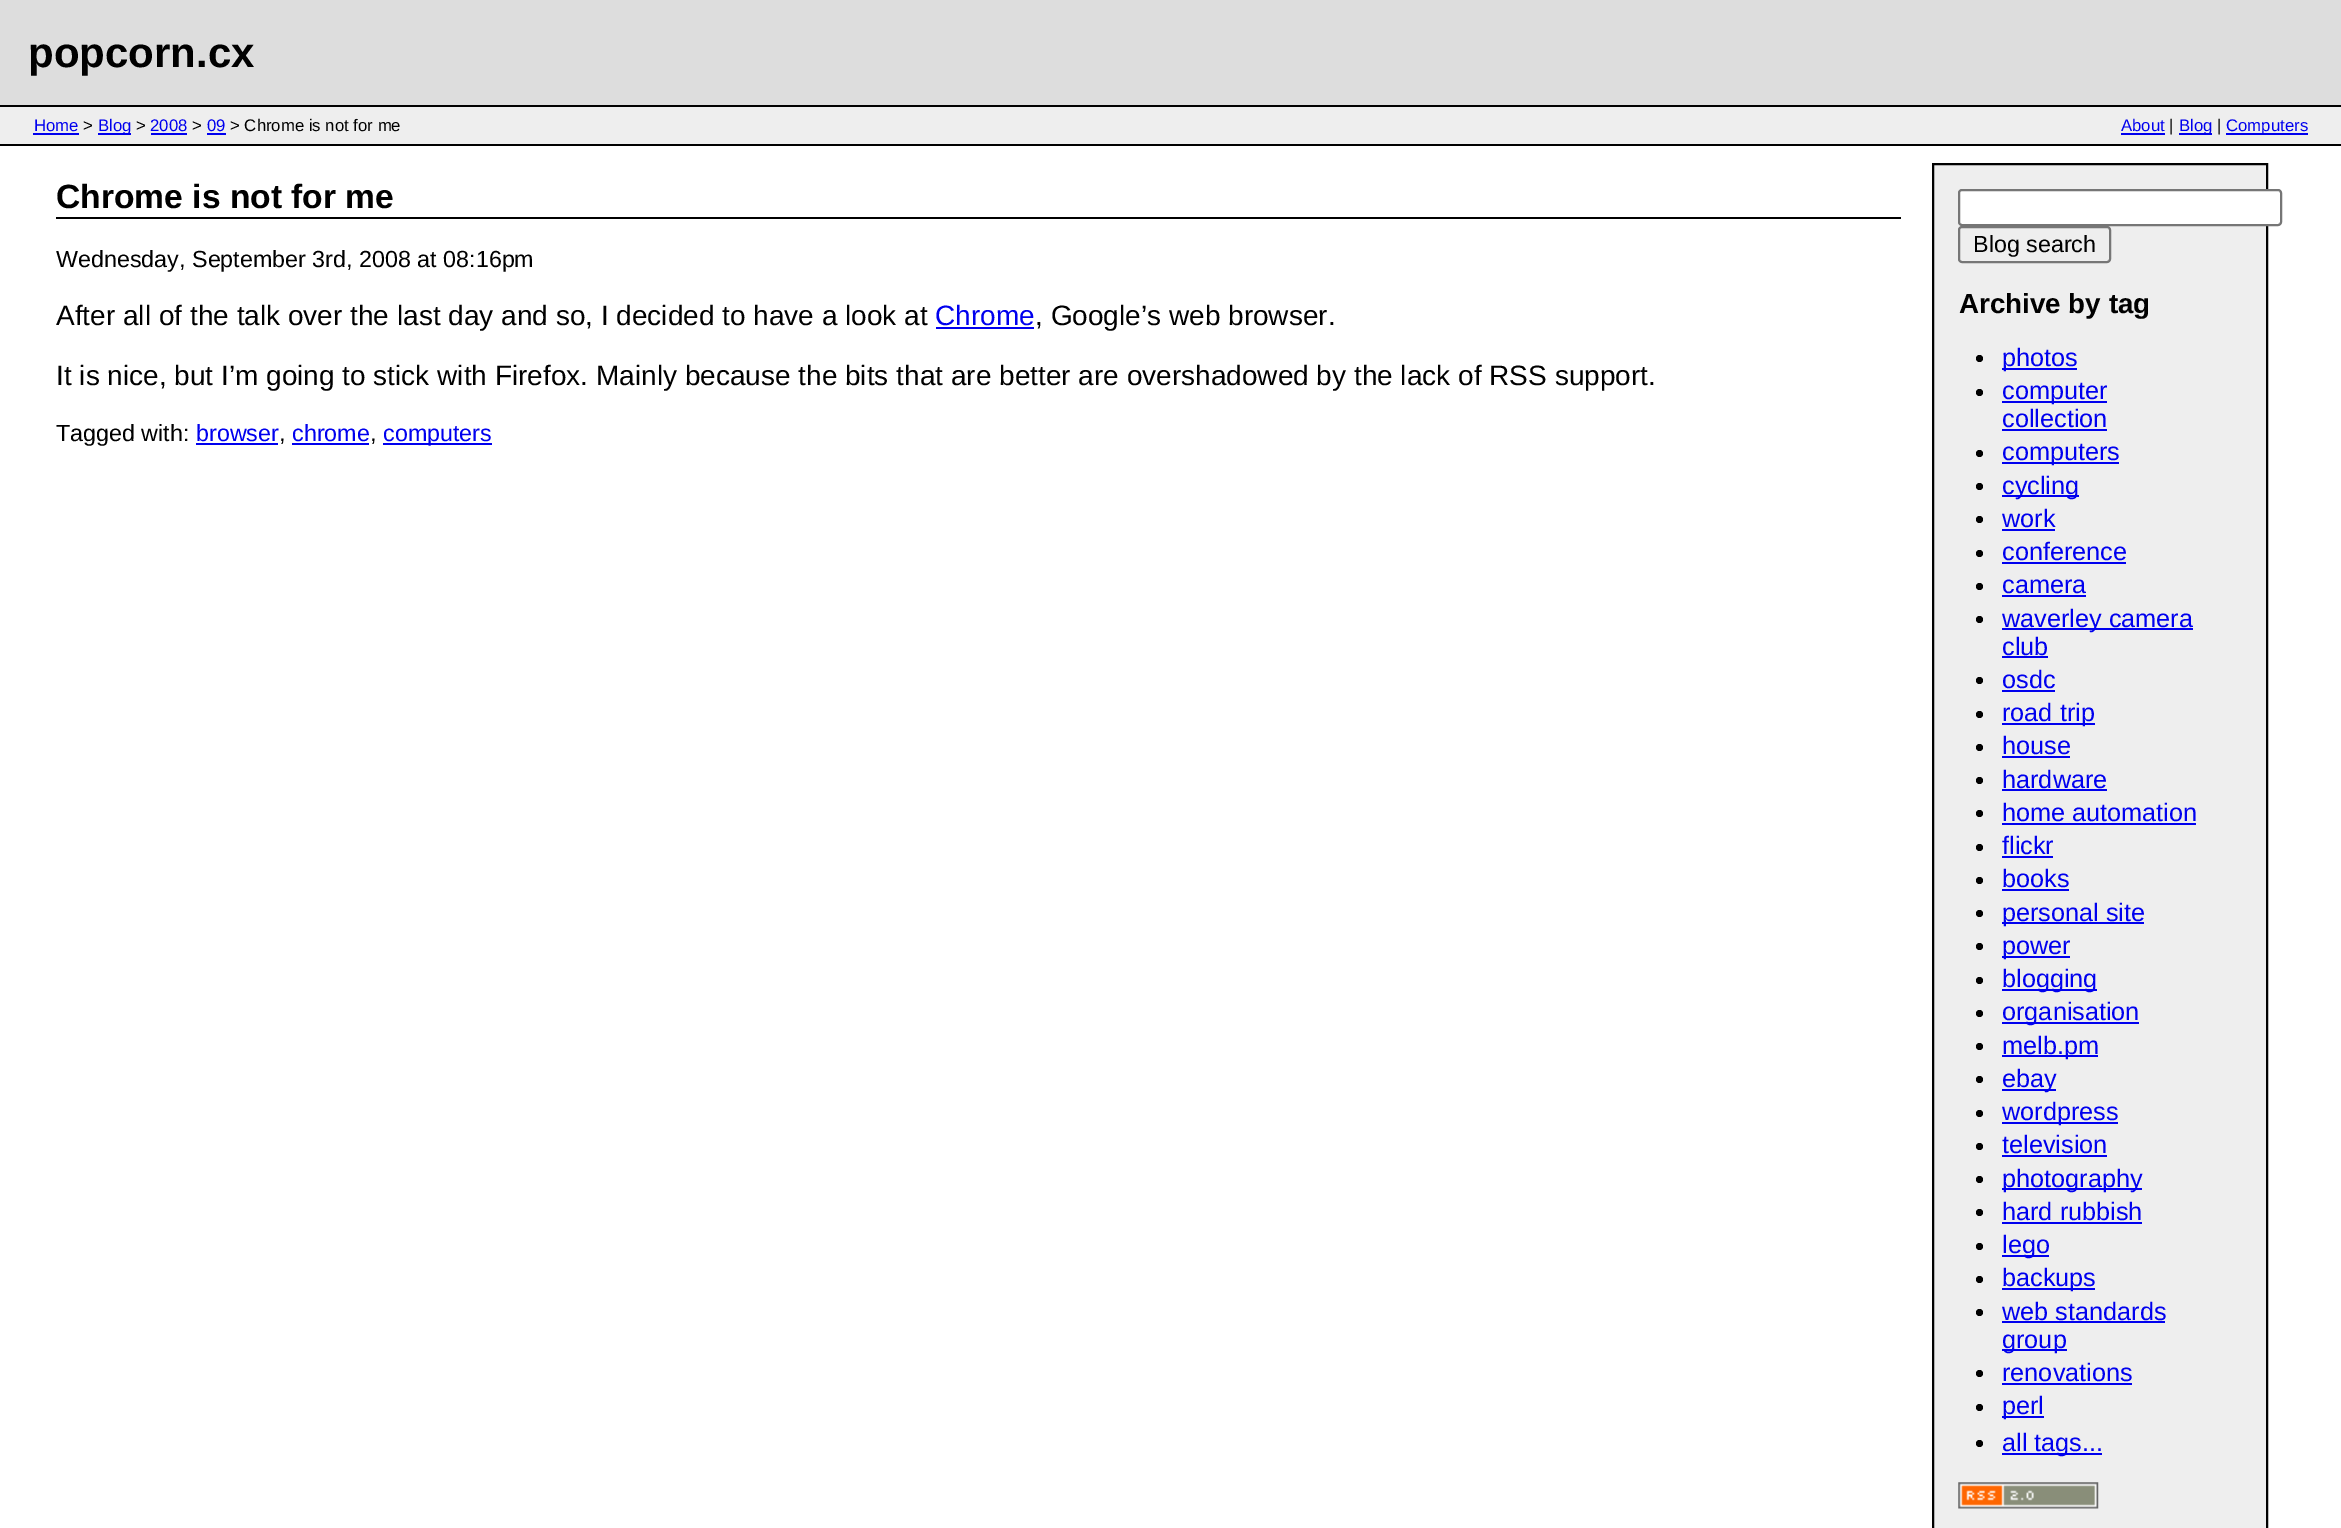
%!PS
<< /PageSize [2341 1528] >> setpagedevice
/roundrect { 5 dict begin { /r /h /w /y /x } { exch def } forall
  x r add y moveto x w add y 2 copy h add r arct x w add y h add x 1 index r arct
  x y h add x y r arct x y 2 copy exch w add exch r arct closepath end } def
/picture { 5 dict begin { /h /w /y /x /name } { exch def } forall
  gsave x y translate w h scale
  w h 8 [w 0 0 h 0 0] name (r) file false 3 colorimage grestore end } def
0 1528 translate 1 -1 scale
4 setmiterlimit
1 setgray
0 0 2341 1528 rectfill
0.867 setgray
0 0 2341 105 rectfill
0 setgray
0 105 2341 2 rectfill
/LiberationSans-Bold [42 0 0 -42 0 0] selectfont
28 67 moveto (popcorn.cx) show
0.933 setgray
0 107 2341 37 rectfill
0 setgray
0 144 2341 2 rectfill
/LiberationSans-Regular [16.75 0 0 -16.75 0 0] selectfont
0 0 0.933 setrgbcolor
34 131 moveto (Home) show
33 133 46 2 rectfill
0 setgray
83 131 moveto (>) show
0 0 0.933 setrgbcolor
98 133 33 2 rectfill
98 131 moveto (Blog) show
0 setgray
136 131 moveto (>) show
0 0 0.933 setrgbcolor
150 131 moveto (2008) show
151 133 36 2 rectfill
0 setgray
192 131 moveto (>) show
0 0 0.933 setrgbcolor
207 131 moveto (09) show
207 133 19 2 rectfill
0 setgray
230 131 moveto (> Chrome is not for me) show
0 0 0.933 setrgbcolor
2121 131 moveto (About) show
2121 133 44 2 rectfill
0 setgray
2169 131 moveto (|) show
0 0 0.933 setrgbcolor
2179 133 33 2 rectfill
2179 131 moveto (Blog) show
0 setgray
2217 131 moveto (|) show
0 0 0.933 setrgbcolor
2226 133 82 2 rectfill
2226 131 moveto (Computers) show
0 setgray
56 217 1845 2 rectfill
/LiberationSans-Bold [33.6 0 0 -33.6 0 0] selectfont
56 208 moveto (Chrome is not for me) show
/LiberationSans-Regular [23.3 0 0 -23.3 0 0] selectfont
56 267 moveto (Wednesday, September 3rd, 2008 at 08:16pm) show
/LiberationSans-Regular [28 0 0 -28 0 0] selectfont
56 325 moveto (After all of the talk over the last day and so, I decided to have a look at) show
0 0 0.933 setrgbcolor
935 325 moveto (Chrome) show
936 327 98 2 rectfill
0 setgray
1035 325 moveto (, Google’s web browser.) show
56 385 moveto (It is nice, but I’m going to stick with Firefox. Mainly because the bits that are better are overshadowed by the lack of RSS support.) show
/LiberationSans-Regular [23.3 0 0 -23.3 0 0] selectfont
56 441 moveto (Tagged with:) show
0 0 0.933 setrgbcolor
196 441 moveto (browser) show
0 setgray
279 441 moveto (,) show
0 0 0.933 setrgbcolor
196 443 82 2 rectfill
292 441 moveto (chrome) show
0 setgray
370 441 moveto (,) show
0 0 0.933 setrgbcolor
292 443 77 2 rectfill
383 443 109 2 rectfill
383 441 moveto (computers) show
0.933 setgray
newpath 1933 164 moveto 2267 164 lineto 2267 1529 lineto 1933 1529 lineto closepath gsave fill grestore
0 setgray
2 setlinewidth
stroke
1 setgray
1959 190 322 35 3 roundrect gsave fill grestore
0.463 setgray
stroke
1959 227 151 35 3 roundrect stroke
0 setgray
1973 252 moveto (Blog search) show
/LiberationSans-Bold [27.75 0 0 -27.75 0 0] selectfont
1959 313 moveto (Archive by tag) show
newpath 1979.5 358.5 3.5 0 360 arc closepath fill
0 0 0.933 setrgbcolor
2002 368 75 2 rectfill
/LiberationSans-Regular [25.25 0 0 -25.25 0 0] selectfont
2002 366 moveto (photos) show
0 setgray
newpath 1979.5 392.5 3.5 0 360 arc closepath fill
0 0 0.933 setrgbcolor
2002 401 105 2 rectfill
2002 399 moveto (computer) show
2002 427 moveto (collection) show
2002 429 105 2 rectfill
0 setgray
newpath 1979.5 453.5 3.5 0 360 arc closepath fill
0 0 0.933 setrgbcolor
2002 462 117 2 rectfill
2002 460 moveto (computers) show
0 setgray
newpath 1979.5 486.5 3.5 0 360 arc closepath fill
0 0 0.933 setrgbcolor
2002 495 77 2 rectfill
2002 494 moveto (cycling) show
0 setgray
newpath 1979.5 519.5 3.5 0 360 arc closepath fill
0 0 0.933 setrgbcolor
2002 527 moveto (work) show
2002 529 53 2 rectfill
0 setgray
newpath 1979.5 553.5 3.5 0 360 arc closepath fill
0 0 0.933 setrgbcolor
2002 560 moveto (conference) show
2002 562 124 2 rectfill
0 setgray
newpath 1979.5 586.5 3.5 0 360 arc closepath fill
0 0 0.933 setrgbcolor
2002 593 moveto (camera) show
2002 595 84 2 rectfill
0 setgray
newpath 1979.5 619.5 3.5 0 360 arc closepath fill
0 0 0.933 setrgbcolor
2002 628 191 2 rectfill
2002 627 moveto (waverley camera) show
2002 655 moveto (club) show
2002 656 46 2 rectfill
0 setgray
newpath 1979.5 680.5 3.5 0 360 arc closepath fill
0 0 0.933 setrgbcolor
2002 688 moveto (osdc) show
2002 690 53 2 rectfill
0 setgray
newpath 1979.5 714.5 3.5 0 360 arc closepath fill
0 0 0.933 setrgbcolor
2002 723 93 2 rectfill
2002 721 moveto (road trip) show
0 setgray
newpath 1979.5 747.5 3.5 0 360 arc closepath fill
0 0 0.933 setrgbcolor
2002 754 moveto (house) show
2002 756 68 2 rectfill
0 setgray
newpath 1979.5 780.5 3.5 0 360 arc closepath fill
0 0 0.933 setrgbcolor
2002 788 moveto (hardware) show
2002 789 105 2 rectfill
0 setgray
newpath 1979.5 813.5 3.5 0 360 arc closepath fill
0 0 0.933 setrgbcolor
2002 821 moveto (home automation) show
2002 823 194 2 rectfill
0 setgray
newpath 1979.5 847.5 3.5 0 360 arc closepath fill
0 0 0.933 setrgbcolor
2002 854 moveto (flickr) show
2002 856 51 2 rectfill
0 setgray
newpath 1979.5 880.5 3.5 0 360 arc closepath fill
0 0 0.933 setrgbcolor
2002 887 moveto (books) show
2002 889 67 2 rectfill
0 setgray
newpath 1979.5 913.5 3.5 0 360 arc closepath fill
0 0 0.933 setrgbcolor
2002 922 142 2 rectfill
2002 921 moveto (personal site) show
0 setgray
newpath 1979.5 946.5 3.5 0 360 arc closepath fill
0 0 0.933 setrgbcolor
2002 956 68 2 rectfill
2002 954 moveto (power) show
0 setgray
newpath 1979.5 980.5 3.5 0 360 arc closepath fill
0 0 0.933 setrgbcolor
2002 989 95 2 rectfill
2002 987 moveto (blogging) show
0 setgray
newpath 1979.5 1013.5 3.5 0 360 arc closepath fill
0 0 0.933 setrgbcolor
2002 1022 137 2 rectfill
2002 1020 moveto (organisation) show
0 setgray
newpath 1979.5 1046.5 3.5 0 360 arc closepath fill
0 0 0.933 setrgbcolor
2002 1055 96 2 rectfill
2002 1054 moveto (melb.pm) show
0 setgray
newpath 1979.5 1079.5 3.5 0 360 arc closepath fill
0 0 0.933 setrgbcolor
2002 1089 54 2 rectfill
2002 1087 moveto (ebay) show
0 setgray
newpath 1979.5 1113.5 3.5 0 360 arc closepath fill
0 0 0.933 setrgbcolor
2002 1122 116 2 rectfill
2002 1120 moveto (wordpress) show
0 setgray
newpath 1979.5 1146.5 3.5 0 360 arc closepath fill
0 0 0.933 setrgbcolor
2002 1153 moveto (television) show
2002 1155 105 2 rectfill
0 setgray
newpath 1979.5 1179.5 3.5 0 360 arc closepath fill
0 0 0.933 setrgbcolor
2002 1188 140 2 rectfill
2002 1187 moveto (photography) show
0 setgray
newpath 1979.5 1212.5 3.5 0 360 arc closepath fill
0 0 0.933 setrgbcolor
2002 1220 moveto (hard rubbish) show
2002 1222 140 2 rectfill
0 setgray
newpath 1979.5 1246.5 3.5 0 360 arc closepath fill
0 0 0.933 setrgbcolor
2002 1255 47 2 rectfill
2002 1253 moveto (lego) show
0 setgray
newpath 1979.5 1279.5 3.5 0 360 arc closepath fill
0 0 0.933 setrgbcolor
2002 1288 93 2 rectfill
2002 1286 moveto (backups) show
0 setgray
newpath 1979.5 1312.5 3.5 0 360 arc closepath fill
0 0 0.933 setrgbcolor
2002 1320 moveto (web standards) show
2002 1321 163 2 rectfill
2002 1349 65 2 rectfill
2002 1348 moveto (group) show
0 setgray
newpath 1979.5 1373.5 3.5 0 360 arc closepath fill
0 0 0.933 setrgbcolor
2002 1381 moveto (renovations) show
2002 1383 130 2 rectfill
0 setgray
newpath 1979.5 1407.5 3.5 0 360 arc closepath fill
0 0 0.933 setrgbcolor
2002 1416 42 2 rectfill
2002 1414 moveto (perl) show
0 setgray
newpath 1979.5 1443.5 3.5 0 360 arc closepath fill
0 0 0.933 setrgbcolor
2002 1453 100 2 rectfill
2002 1451 moveto (all tags...) show
(img1.rgb) 1958 1482 141 27 picture
showpage
